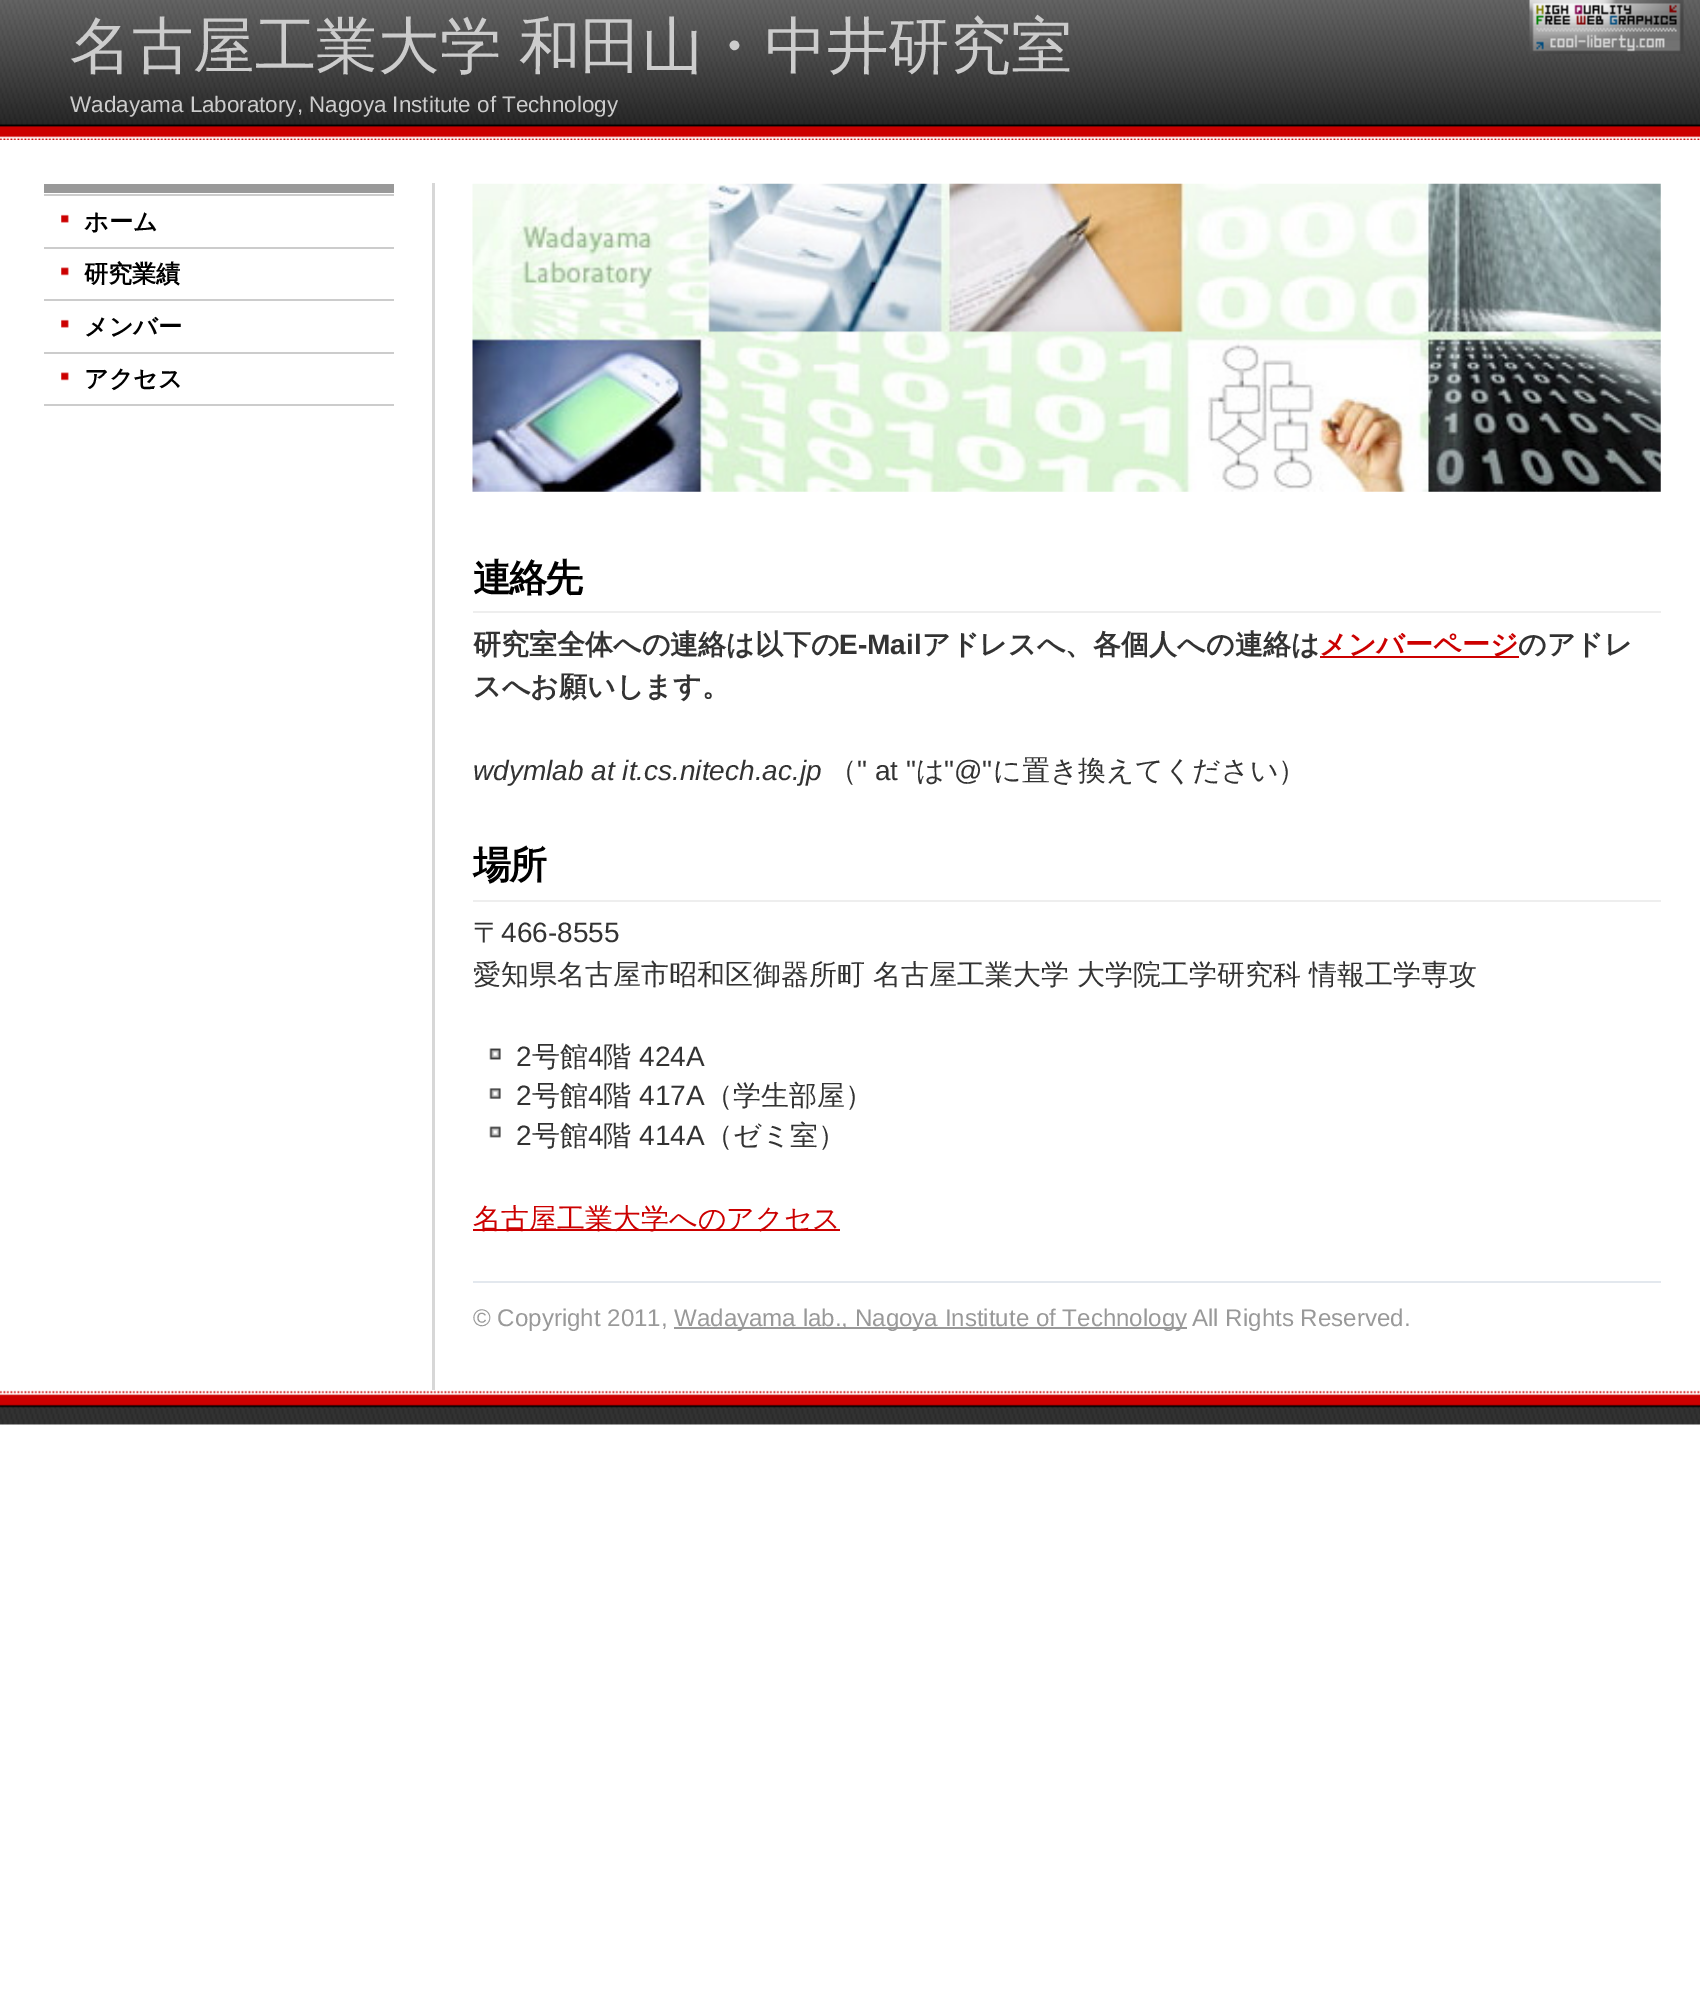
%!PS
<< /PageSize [1700 1989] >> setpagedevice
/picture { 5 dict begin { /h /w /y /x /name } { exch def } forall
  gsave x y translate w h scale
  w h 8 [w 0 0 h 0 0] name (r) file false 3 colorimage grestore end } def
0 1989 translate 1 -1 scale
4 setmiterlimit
1 setgray
0 0 1700 1989 rectfill
(img1.rgb) 0 1390 1700 35 picture
(img2.rgb) 0 0 1700 140 picture
/WenQuanYiZenHei-Medium [61.6 0 0 -61.6 0 0] selectfont
0.8 setgray
70 67 moveto -1 0 32 (名古屋工業大学 和田山・中井研究室) widthshow
/LiberationSans-Regular [22.4 0 0 -22.4 0 0] selectfont
70 112 moveto (Wadayama Laboratory, Nagoya Institute of Technology) show
(img3.rgb) 1529 0 155 54 picture
0.843 setgray
432 183 3 1207 rectfill
0.6 setgray
44 184 350 9 rectfill
0.8 setgray
44 194 350 2 rectfill
44 247 350 2 rectfill
(img4.rgb) 61 214 8 9 picture
/WenQuanYiZenHei-Bold [24.1 0 0 -24.1 0 0] selectfont
0 setgray
84 230 moveto (ホーム) show
0.8 setgray
44 299 350 2 rectfill
(img5.rgb) 61 267 8 9 picture
0 setgray
84 282 moveto (研究業績) show
0.8 setgray
44 352 350 2 rectfill
(img4.rgb) 61 319 8 9 picture
0 setgray
84 335 moveto (メンバー) show
0.8 setgray
44 404 350 2 rectfill
(img5.rgb) 61 372 8 9 picture
0 setgray
84 387 moveto (アクセス) show
(img6.rgb) 472 183 1189 309 picture
0.933 setgray
473 611 1188 2 rectfill
/WenQuanYiZenHei-Bold [38 0 0 -38 0 0] selectfont
0 setgray
473 591 moveto -2 0 (連絡先) ashow
/WenQuanYiZenHei-Bold [28 0 0 -28 0 0] selectfont
0.2 setgray
473 654 moveto (研究室全体への連絡は以下の) show
/LiberationSans-Bold [28 0 0 -28 0 0] selectfont
839 654 moveto (E-Mail) show
/WenQuanYiZenHei-Bold [28 0 0 -28 0 0] selectfont
922 654 moveto (アドレスへ、各個人への連絡は) show
0.8 0 0 setrgbcolor
1320 656 199 2 rectfill
1319 654 moveto (メンバーページ) show
0.2 setgray
1518 654 moveto (のアドレ) show
473 696 moveto (スへお願いします。) show
/LiberationSans-Italic [28 0 0 -28 0 0] selectfont
473 780 moveto (wdymlab at it.cs.nitech.ac.jp) show
/WenQuanYiZenHei-Medium [28 0 0 -28 0 0] selectfont
829 780 moveto (（) show
/LiberationSans-Regular [28 0 0 -28 0 0] selectfont
857 780 moveto (" at ") show
/WenQuanYiZenHei-Medium [28 0 0 -28 0 0] selectfont
916 780 moveto (は) show
/LiberationSans-Regular [28 0 0 -28 0 0] selectfont
944 780 moveto ("@") show
/WenQuanYiZenHei-Medium [28 0 0 -28 0 0] selectfont
993 780 moveto (に置き換えてください）) show
0.933 setgray
473 900 1188 2 rectfill
/WenQuanYiZenHei-Bold [38 0 0 -38 0 0] selectfont
0 setgray
473 878 moveto -2 0 (場所) ashow
/WenQuanYiZenHei-Medium [28 0 0 -28 0 0] selectfont
0.2 setgray
473 942 moveto (〒) show
/LiberationSans-Regular [28 0 0 -28 0 0] selectfont
501 942 moveto (466-8555) show
/WenQuanYiZenHei-Medium [28 0 0 -28 0 0] selectfont
473 984 moveto -0.5 0 32 (愛知県名古屋市昭和区御器所町 名古屋工業大学 大学院工学研究科 情報工学専攻) widthshow
(img7.rgb) 489 1048 12 12 picture
/LiberationSans-Regular [28 0 0 -28 0 0] selectfont
516 1066 moveto (2) show
/WenQuanYiZenHei-Medium [28 0 0 -28 0 0] selectfont
532 1066 moveto (号館) show
/LiberationSans-Regular [28 0 0 -28 0 0] selectfont
588 1066 moveto (4) show
/WenQuanYiZenHei-Medium [28 0 0 -28 0 0] selectfont
603 1066 moveto (階) show
/LiberationSans-Regular [28 0 0 -28 0 0] selectfont
639 1066 moveto (424A) show
(img8.rgb) 489 1088 12 11 picture
516 1105 moveto (2) show
/WenQuanYiZenHei-Medium [28 0 0 -28 0 0] selectfont
532 1105 moveto (号館) show
/LiberationSans-Regular [28 0 0 -28 0 0] selectfont
588 1105 moveto (4) show
/WenQuanYiZenHei-Medium [28 0 0 -28 0 0] selectfont
603 1105 moveto (階) show
/LiberationSans-Regular [28 0 0 -28 0 0] selectfont
639 1105 moveto (417A) show
/WenQuanYiZenHei-Medium [28 0 0 -28 0 0] selectfont
705 1105 moveto (（学生部屋）) show
(img9.rgb) 489 1126 12 12 picture
/LiberationSans-Regular [28 0 0 -28 0 0] selectfont
516 1145 moveto (2) show
/WenQuanYiZenHei-Medium [28 0 0 -28 0 0] selectfont
532 1145 moveto (号館) show
/LiberationSans-Regular [28 0 0 -28 0 0] selectfont
588 1145 moveto (4) show
/WenQuanYiZenHei-Medium [28 0 0 -28 0 0] selectfont
603 1145 moveto (階) show
/LiberationSans-Regular [28 0 0 -28 0 0] selectfont
639 1145 moveto (414A) show
/WenQuanYiZenHei-Medium [28 0 0 -28 0 0] selectfont
705 1145 moveto (（ゼミ室）) show
0.8 0 0 setrgbcolor
473 1229 367 2 rectfill
473 1228 moveto (名古屋工業大学へのアクセス) show
0.89 0.91 0.933 setrgbcolor
473 1281 1188 2 rectfill
/LiberationSans-Regular [24.1 0 0 -24.1 0 0] selectfont
0.6 setgray
473 1326 moveto (© Copyright 2011,) show
674 1327 513 2 rectfill
674 1326 moveto (Wadayama lab., Nagoya Institute of Technology) show
1192 1326 moveto (All Rights Reserved.) show
showpage
